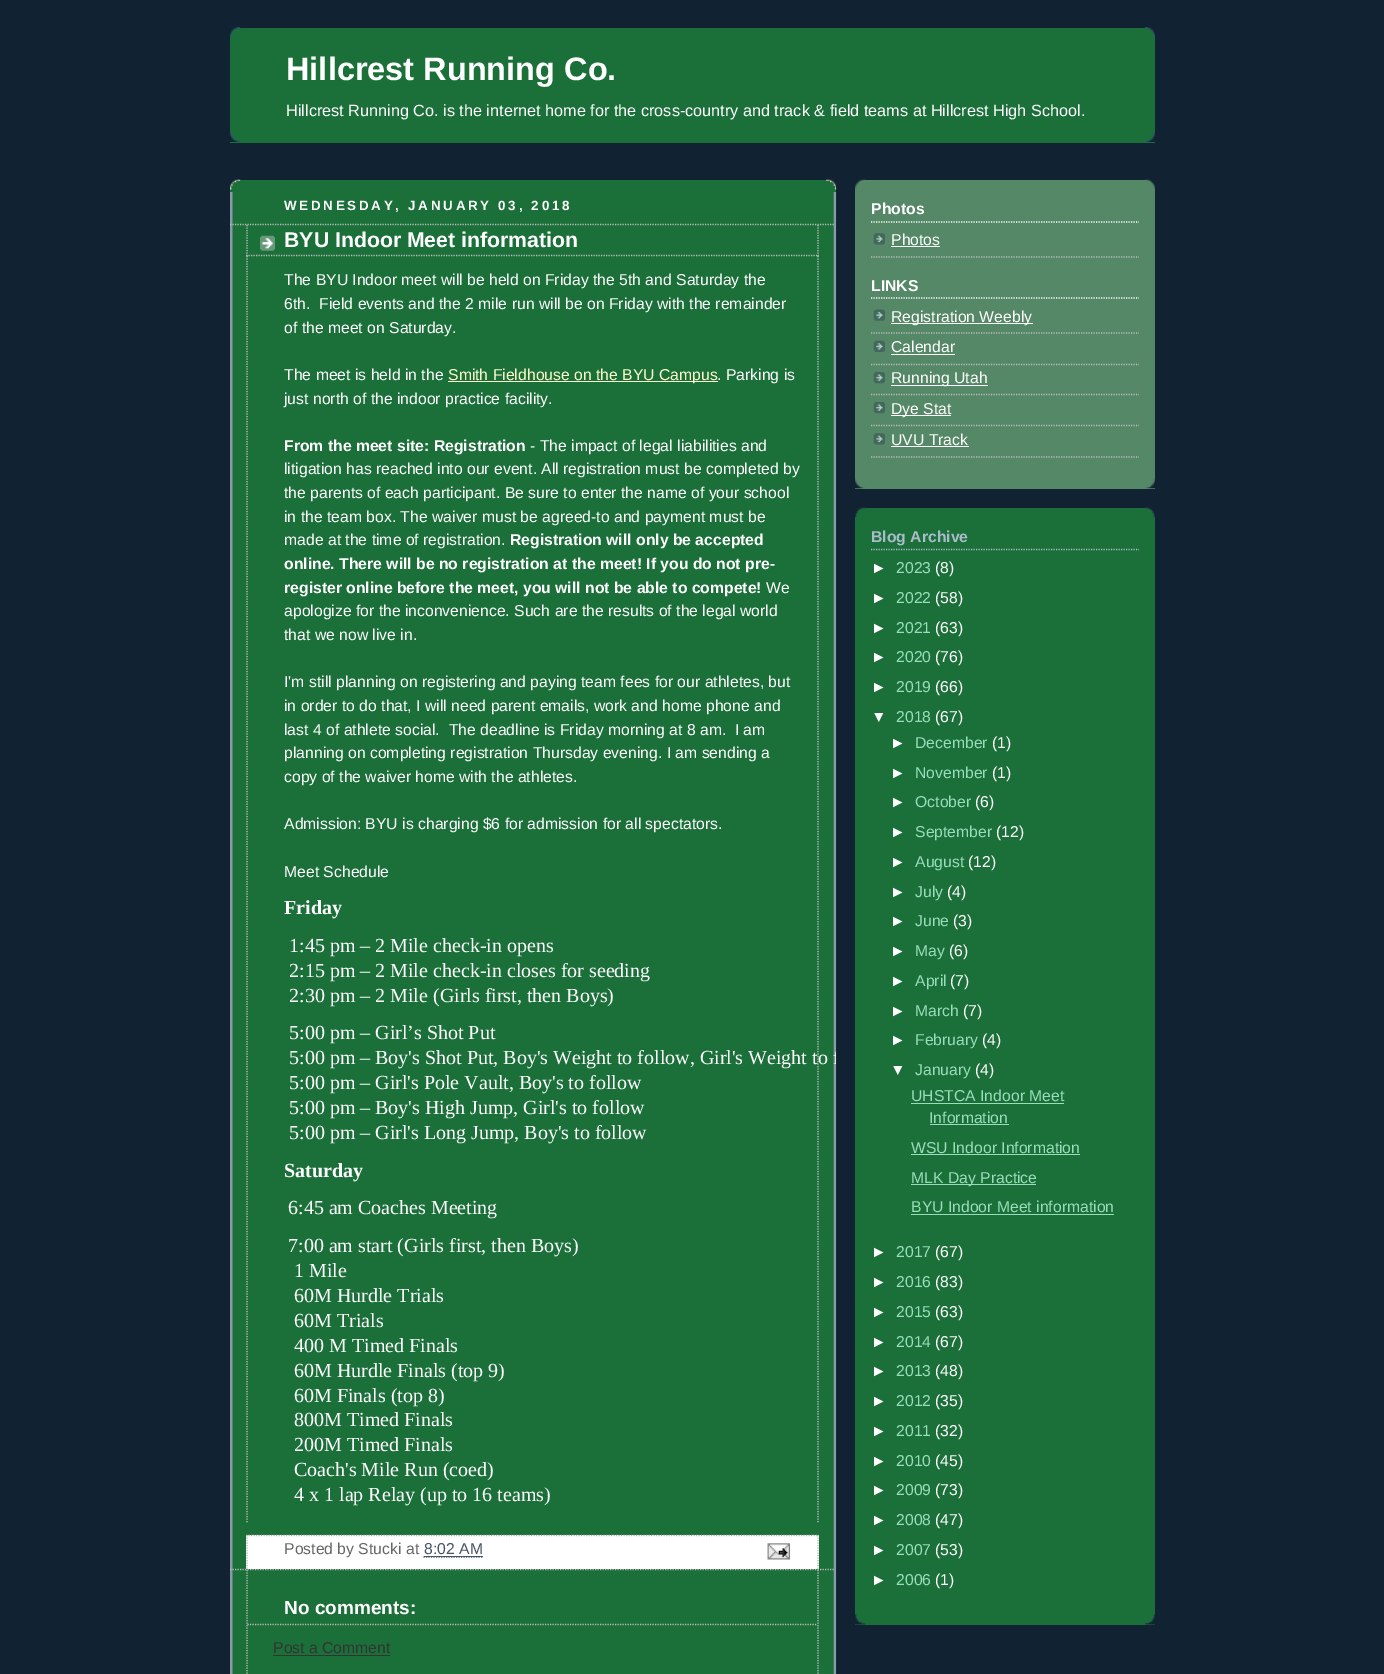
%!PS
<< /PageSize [1384 1674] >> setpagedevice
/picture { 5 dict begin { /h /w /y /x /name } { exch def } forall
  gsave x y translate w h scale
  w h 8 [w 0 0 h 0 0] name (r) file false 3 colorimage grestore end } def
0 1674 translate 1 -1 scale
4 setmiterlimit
0.067 0.133 0.2 setrgbcolor
0 0 1384 1674 rectfill
0.106 0.439 0.227 setrgbcolor
230 28 925 115 rectfill
(img1.rgb) 230 27 925 10 picture
(img2.rgb) 230 132 925 10 picture
/LiberationSans-Bold [32.5 0 0 -32.5 0 0] selectfont
1 setgray
286 80 moveto (Hillcrest Running Co.) show
/LiberationSans-Regular [16.25 0 0 -16.25 0 0] selectfont
286 116 moveto (Hillcrest Running Co. is the internet home for the cross-country and track & field teams at Hillcrest High School.) show
0.106 0.439 0.227 setrgbcolor
230 180 606 1494 rectfill
(img3.rgb) 230 179 607 11 picture
(img4.rgb) 230 192 607 1482 picture
/LiberationSans-Bold [13.4 0 0 -13.4 0 0] selectfont
1 setgray
284 210 moveto 2.7 0 (WEDNESDAY, JANUARY 03, 2018) ashow
0.733 setgray
1.2 setlinewidth
[1.25 1.25] 0 setdash
newpath 230 224.5 moveto 835 224.5 lineto stroke
newpath 230 1569.5 moveto 835 1569.5 lineto stroke
(img5.rgb) 260 235 15 16 picture
newpath 818 225 moveto 818 256 lineto stroke
newpath 246 255.5 moveto 819 255.5 lineto stroke
newpath 247 225 moveto 247 256 lineto stroke
/LiberationSans-Bold [21.25 0 0 -21.25 0 0] selectfont
1 setgray
284 247 moveto (BYU Indoor Meet information) show
0.733 setgray
newpath 818 256 moveto 818 1522.5 lineto stroke
newpath 247 256 moveto 247 1522.5 lineto stroke
/LiberationSans-Regular [15.75 0 0 -15.75 0 0] selectfont
1 setgray
284 285 moveto (The BYU Indoor meet will be held on Friday the 5th and Saturday the) show
284 309 moveto (6th.  Field events and the 2 mile run will be on Friday with the remainder) show
284 333 moveto (of the meet on Saturday.) show
284 380 moveto (The meet is held in the) show
1 1 0.8 setrgbcolor
448 381 270 1 rectfill
448 380 moveto (Smith Fieldhouse on the BYU Campus) show
1 setgray
717 380 moveto (. Parking is) show
284 404 moveto (just north of the indoor practice facility.) show
/LiberationSans-Bold [15.75 0 0 -15.75 0 0] selectfont
284 451 moveto (From the meet site: Registration) show
/LiberationSans-Regular [15.75 0 0 -15.75 0 0] selectfont
530 451 moveto (- The impact of legal liabilities and) show
284 474 moveto (litigation has reached into our event. All registration must be completed by) show
284 498 moveto (the parents of each participant. Be sure to enter the name of your school) show
284 522 moveto (in the team box. The waiver must be agreed-to and payment must be) show
284 545 moveto (made at the time of registration.) show
/LiberationSans-Bold [15.75 0 0 -15.75 0 0] selectfont
510 545 moveto (Registration will only be accepted) show
284 569 moveto (online. There will be no registration at the meet! If you do not pre-) show
284 593 moveto (register online before the meet, you will not be able to compete!) show
/LiberationSans-Regular [15.75 0 0 -15.75 0 0] selectfont
766 593 moveto (We) show
284 616 moveto (apologize for the inconvenience. Such are the results of the legal world) show
284 640 moveto (that we now live in.) show
284 687 moveto (I'm still planning on registering and paying team fees for our athletes, but) show
284 711 moveto (in order to do that, I will need parent emails, work and home phone and) show
284 735 moveto (last 4 of athlete social.  The deadline is Friday morning at 8 am.  I am) show
284 758 moveto (planning on completing registration Thursday evening. I am sending a) show
284 782 moveto (copy of the waiver home with the athletes.) show
284 829 moveto (Admission: BYU is charging $6 for admission for all spectators.) show
284 877 moveto (Meet Schedule) show
/LiberationSerif-Bold [20 0 0 -20 0 0] selectfont
284 914 moveto (Friday) show
/LiberationSerif-Regular [20 0 0 -20 0 0] selectfont
289 952 moveto (1:45 pm – 2 Mile check-in opens) show
289 977 moveto (2:15 pm – 2 Mile check-in closes for seeding) show
289 1002 moveto (2:30 pm – 2 Mile \(Girls first, then Boys\)) show
289 1039 moveto (5:00 pm – Girl’s Shot Put) show
gsave
230 180 606 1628 rectclip
289 1064 moveto (5:00 pm – Boy's Shot Put, Boy's Weight to follow, Girl's Weight to f) show
grestore
289 1089 moveto (5:00 pm – Girl's Pole Vault, Boy's to follow) show
289 1114 moveto (5:00 pm – Boy's High Jump, Girl's to follow) show
289 1139 moveto (5:00 pm – Girl's Long Jump, Boy's to follow) show
/LiberationSerif-Bold [20 0 0 -20 0 0] selectfont
284 1177 moveto (Saturday) show
/LiberationSerif-Regular [20 0 0 -20 0 0] selectfont
288 1214 moveto (6:45 am Coaches Meeting) show
288 1252 moveto (7:00 am start \(Girls first, then Boys\)) show
294 1277 moveto (1 Mile) show
294 1302 moveto (60M Hurdle Trials) show
294 1327 moveto (60M Trials) show
294 1352 moveto (400 M Timed Finals) show
294 1377 moveto (60M Hurdle Finals \(top 9\)) show
294 1402 moveto (60M Finals \(top 8\)) show
294 1426 moveto (800M Timed Finals) show
294 1451 moveto (200M Timed Finals) show
294 1476 moveto (Coach's Mile Run \(coed\)) show
294 1501 moveto (4 x 1 lap Relay \(up to 16 teams\)) show
246 1535 573 34 rectfill
0.733 setgray
newpath 246 1535.5 moveto 819 1535.5 lineto stroke
newpath 818 1535 moveto 818 1569 lineto stroke
newpath 247 1535 moveto 247 1569 lineto stroke
/LiberationSans-Regular [15.75 0 0 -15.75 0 0] selectfont
0.4 setgray
284 1554 moveto (Posted by Stucki) show
406 1554 moveto (at) show
0.267 0.333 0.4 setrgbcolor
424 1554 moveto (8:02 AM) show
newpath 423.5 1557 moveto 482.5 1557 lineto stroke
424 1556 59 1 rectfill
(img6.rgb) 767 1543 23 17 picture
0.733 setgray
newpath 818 1570 moveto 818 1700 lineto stroke
newpath 247 1570 moveto 247 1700 lineto stroke
newpath 247.5 1624.5 moveto 817.5 1624.5 lineto stroke
/LiberationSans-Bold [19 0 0 -19 0 0] selectfont
1 setgray
284 1614 moveto (No comments:) show
/LiberationSans-Regular [15.75 0 0 -15.75 0 0] selectfont
0.2 setgray
273 1653 moveto (Post a Comment) show
273 1655 117 1 rectfill
0.333 0.533 0.4 setrgbcolor
855 180 300 309 rectfill
(img7.rgb) 855 478 300 11 picture
(img8.rgb) 855 179 300 10 picture
1 setgray
newpath 871 222 moveto 1139 222 lineto stroke
/LiberationSans-Bold [15.75 0 0 -15.75 0 0] selectfont
871 214 moveto (Photos) show
(img9.rgb) 873 233 12 12 picture
0.733 setgray
newpath 871 257 moveto 1139 257 lineto stroke
/LiberationSans-Regular [15.75 0 0 -15.75 0 0] selectfont
1 setgray
891 245 moveto (Photos) show
891 246 49 1 rectfill
newpath 871 298 moveto 1139 298 lineto stroke
/LiberationSans-Bold [15.75 0 0 -15.75 0 0] selectfont
871 291 moveto (LINKS) show
(img10.rgb) 873 309 12 12 picture
0.733 setgray
newpath 871 333 moveto 1139 333 lineto stroke
1 setgray
891 323 142 1 rectfill
/LiberationSans-Regular [15.75 0 0 -15.75 0 0] selectfont
891 322 moveto (Registration Weebly) show
(img11.rgb) 873 340 12 12 picture
0.733 setgray
newpath 871 364.5 moveto 1139 364.5 lineto stroke
1 setgray
891 352 moveto (Calendar) show
891 354 64 1 rectfill
(img12.rgb) 873 372 12 12 picture
0.733 setgray
newpath 871 394.5 moveto 1139 394.5 lineto stroke
1 setgray
891 385 97 1 rectfill
891 383 moveto (Running Utah) show
(img12.rgb) 873 402 12 12 picture
0.733 setgray
newpath 871 425.5 moveto 1139 425.5 lineto stroke
1 setgray
891 415 60 1 rectfill
891 414 moveto (Dye Stat) show
(img9.rgb) 873 433 12 12 picture
0.733 setgray
newpath 871 457 moveto 1139 457 lineto stroke
1 setgray
891 445 moveto (UVU Track) show
891 446 78 1 rectfill
0.106 0.439 0.227 setrgbcolor
855 508 300 1117 rectfill
(img13.rgb) 855 507 300 11 picture
(img14.rgb) 855 1614 300 11 picture
0.667 0.733 0.8 setrgbcolor
newpath 871 549.5 moveto 1139 549.5 lineto stroke
/LiberationSans-Bold [15.75 0 0 -15.75 0 0] selectfont
871 542 moveto (Blog Archive) show
/LiberationSans-Regular [15.75 0 0 -15.75 0 0] selectfont
1 setgray
871 573 moveto (►) show
0.6 0.867 0.733 setrgbcolor
896 573 moveto (2023) show
1 setgray
935 573 moveto (\(8\)) show
871 603 moveto (►) show
0.6 0.867 0.733 setrgbcolor
896 603 moveto (2022) show
1 setgray
935 603 moveto (\(58\)) show
871 633 moveto (►) show
0.6 0.867 0.733 setrgbcolor
896 633 moveto (2021) show
1 setgray
935 633 moveto (\(63\)) show
871 662 moveto (►) show
0.6 0.867 0.733 setrgbcolor
896 662 moveto (2020) show
1 setgray
935 662 moveto (\(76\)) show
871 692 moveto (►) show
0.6 0.867 0.733 setrgbcolor
896 692 moveto (2019) show
1 setgray
935 692 moveto (\(66\)) show
871 722 moveto (▼) show
0.6 0.867 0.733 setrgbcolor
896 722 moveto (2018) show
1 setgray
935 722 moveto (\(67\)) show
890 748 moveto (►) show
0.6 0.867 0.733 setrgbcolor
915 748 moveto (December) show
1 setgray
992 748 moveto (\(1\)) show
890 778 moveto (►) show
0.6 0.867 0.733 setrgbcolor
915 778 moveto (November) show
1 setgray
992 778 moveto (\(1\)) show
890 807 moveto (►) show
0.6 0.867 0.733 setrgbcolor
915 807 moveto (October) show
1 setgray
975 807 moveto (\(6\)) show
890 837 moveto (►) show
0.6 0.867 0.733 setrgbcolor
915 837 moveto (September) show
1 setgray
996 837 moveto (\(12\)) show
890 867 moveto (►) show
0.6 0.867 0.733 setrgbcolor
915 867 moveto (August) show
1 setgray
968 867 moveto (\(12\)) show
890 897 moveto (►) show
0.6 0.867 0.733 setrgbcolor
915 897 moveto (July) show
1 setgray
947 897 moveto (\(4\)) show
890 926 moveto (►) show
0.6 0.867 0.733 setrgbcolor
915 926 moveto (June) show
1 setgray
953 926 moveto (\(3\)) show
890 956 moveto (►) show
0.6 0.867 0.733 setrgbcolor
915 956 moveto (May) show
1 setgray
949 956 moveto (\(6\)) show
890 986 moveto (►) show
0.6 0.867 0.733 setrgbcolor
915 986 moveto (April) show
1 setgray
950 986 moveto (\(7\)) show
890 1016 moveto (►) show
0.6 0.867 0.733 setrgbcolor
915 1016 moveto (March) show
1 setgray
963 1016 moveto (\(7\)) show
890 1045 moveto (►) show
0.6 0.867 0.733 setrgbcolor
915 1045 moveto (February) show
1 setgray
982 1045 moveto (\(4\)) show
890 1075 moveto (▼) show
0.6 0.867 0.733 setrgbcolor
915 1075 moveto (January) show
1 setgray
975 1075 moveto (\(4\)) show
0.6 0.867 0.733 setrgbcolor
911 1101 moveto (UHSTCA Indoor Meet) show
911 1103 153 1 rectfill
929 1123 moveto (Information) show
930 1124 79 1 rectfill
911 1153 moveto (WSU Indoor Information) show
911 1154 169 1 rectfill
911 1184 125 1 rectfill
911 1183 moveto (MLK Day Practice) show
911 1212 moveto (BYU Indoor Meet information) show
911 1214 203 1 rectfill
1 setgray
871 1257 moveto (►) show
0.6 0.867 0.733 setrgbcolor
896 1257 moveto (2017) show
1 setgray
935 1257 moveto (\(67\)) show
871 1287 moveto (►) show
0.6 0.867 0.733 setrgbcolor
896 1287 moveto (2016) show
1 setgray
935 1287 moveto (\(83\)) show
871 1317 moveto (►) show
0.6 0.867 0.733 setrgbcolor
896 1317 moveto (2015) show
1 setgray
935 1317 moveto (\(63\)) show
871 1347 moveto (►) show
0.6 0.867 0.733 setrgbcolor
896 1347 moveto (2014) show
1 setgray
935 1347 moveto (\(67\)) show
871 1376 moveto (►) show
0.6 0.867 0.733 setrgbcolor
896 1376 moveto (2013) show
1 setgray
935 1376 moveto (\(48\)) show
871 1406 moveto (►) show
0.6 0.867 0.733 setrgbcolor
896 1406 moveto (2012) show
1 setgray
935 1406 moveto (\(35\)) show
871 1436 moveto (►) show
0.6 0.867 0.733 setrgbcolor
896 1436 moveto (2011) show
1 setgray
935 1436 moveto (\(32\)) show
871 1466 moveto (►) show
0.6 0.867 0.733 setrgbcolor
896 1466 moveto (2010) show
1 setgray
935 1466 moveto (\(45\)) show
871 1495 moveto (►) show
0.6 0.867 0.733 setrgbcolor
896 1495 moveto (2009) show
1 setgray
935 1495 moveto (\(73\)) show
871 1525 moveto (►) show
0.6 0.867 0.733 setrgbcolor
896 1525 moveto (2008) show
1 setgray
935 1525 moveto (\(47\)) show
871 1555 moveto (►) show
0.6 0.867 0.733 setrgbcolor
896 1555 moveto (2007) show
1 setgray
935 1555 moveto (\(53\)) show
871 1585 moveto (►) show
0.6 0.867 0.733 setrgbcolor
896 1585 moveto (2006) show
1 setgray
935 1585 moveto (\(1\)) show
showpage
